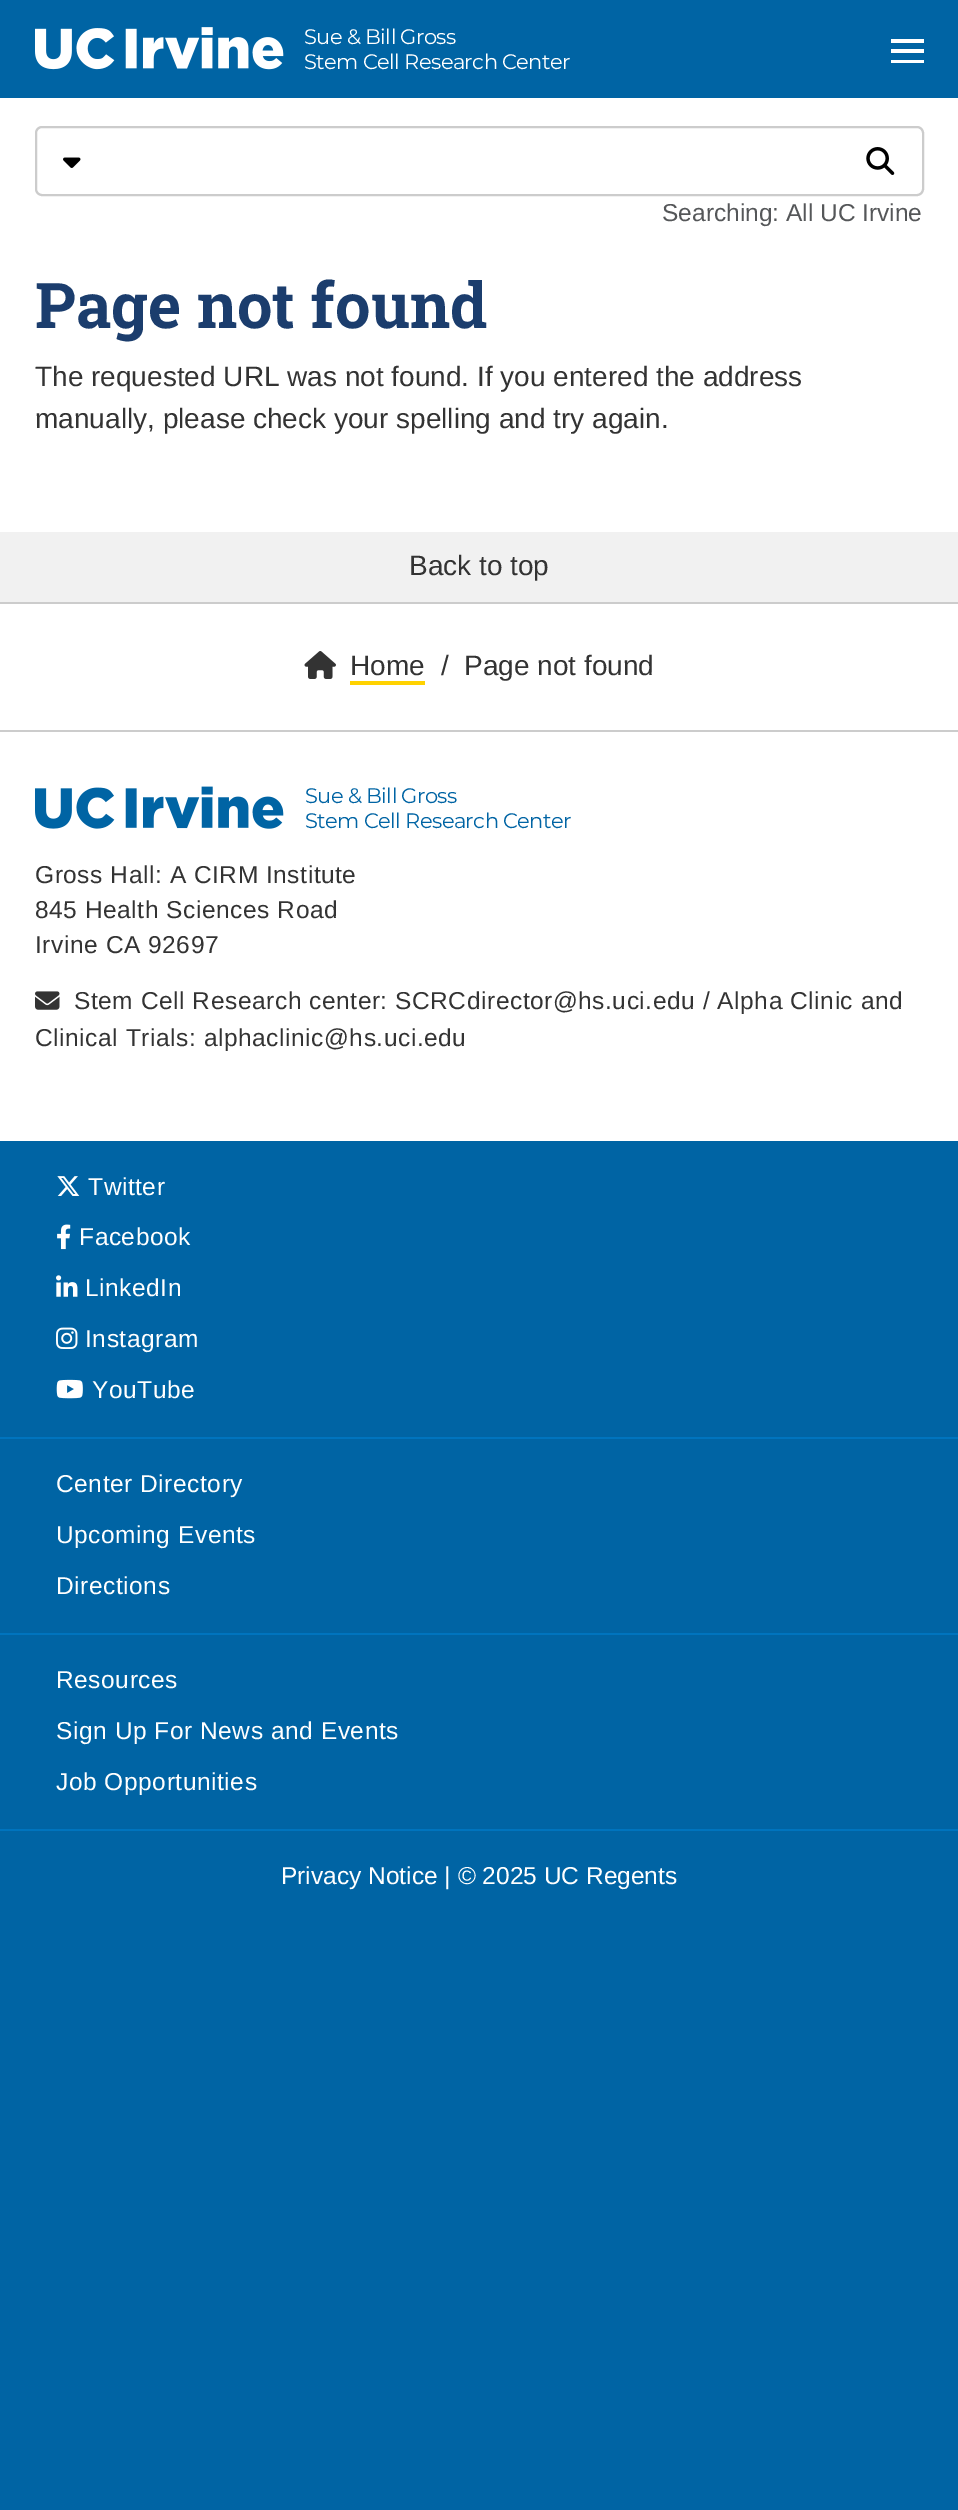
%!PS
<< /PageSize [958 2510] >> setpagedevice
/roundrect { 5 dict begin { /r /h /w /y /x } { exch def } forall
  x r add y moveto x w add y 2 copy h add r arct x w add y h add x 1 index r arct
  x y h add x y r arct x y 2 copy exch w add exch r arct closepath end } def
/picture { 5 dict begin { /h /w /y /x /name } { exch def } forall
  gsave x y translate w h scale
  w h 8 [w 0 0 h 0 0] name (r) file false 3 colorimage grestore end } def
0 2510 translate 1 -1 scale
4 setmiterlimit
0 0.392 0.643 setrgbcolor
0 0 958 2510 rectfill
1 setgray
0 98 958 1043 rectfill
(img1.rgb) 35 27 249 43 picture
/Montserrat-Thin [21 0 0 -21 0 0] selectfont
304 44 moveto -0.6 0 (Sue & Bill Gross) ashow
304 69 moveto -0.6 0 (Stem Cell Research Center) ashow
0.8 setgray
2 setlinewidth
36 127 887 68 6 roundrect stroke
(img2.rgb) 63 157 18 11 picture
(img3.rgb) 866 147 29 28 picture
/LiberationSans-Regular [24.5 0 0 -24.5 0 0] selectfont
0.333 0.341 0.349 setrgbcolor
662 221 moveto (Searching: All UC Irvine) show
1 setgray
891 39 33 4 rectfill
891 49 33 4 rectfill
891 60 33 3 rectfill
/RobotoSlab-Bold [63 0 0 -63 0 0] selectfont
0.106 0.239 0.427 setrgbcolor
35 328 moveto (Page not found) show
/LiberationSans-Regular [28 0 0 -28 0 0] selectfont
0.2 setgray
35 386 moveto (The requested URL was not found. If you entered the address) show
35 428 moveto (manually, please check your spelling and try again.) show
0.945 setgray
0 532 958 70 rectfill
0.2 setgray
409 575 moveto (Back to top) show
0.8 setgray
0 602 958 2 rectfill
(img4.rgb) 304 651 32 28 picture
0.2 setgray
350 675 moveto (Home) show
1 0.824 0 setrgbcolor
350 681 75 4 rectfill
0.2 setgray
441 675 moveto (/) show
464 675 moveto (Page not found) show
0.8 setgray
0 730 958 2 rectfill
(img5.rgb) 35 786 249 43 picture
/Montserrat-Thin [21 0 0 -21 0 0] selectfont
0 0.392 0.643 setrgbcolor
305 803 moveto -0.6 0 (Sue & Bill Gross) ashow
305 828 moveto -0.6 0 (Stem Cell Research Center) ashow
/LiberationSans-Regular [24.5 0 0 -24.5 0 0] selectfont
0.2 setgray
35 883 moveto 0.55 0 (Gross Hall: A CIRM Institute) ashow
35 918 moveto 0.55 0 (845 Health Sciences Road) ashow
35 953 moveto 0.55 0 (Irvine CA 92697) ashow
(img6.rgb) 35 991 25 19 picture
74 1009 moveto 0.55 0 (Stem Cell Research center: SCRCdirector@hs.uci.edu / Alpha Clinic and) ashow
35 1046 moveto 0.55 0 (Clinical Trials: alphaclinic@hs.uci.edu) ashow
0 0.455 0.745 setrgbcolor
0 1437 958 2 rectfill
(img7.rgb) 57 1176 23 20 picture
1 setgray
88 1195 moveto 0.55 0 (Twitter) ashow
(img8.rgb) 57 1224 14 26 picture
79 1245 moveto 0.55 0 (Facebook) ashow
(img9.rgb) 56 1275 22 22 picture
85 1296 moveto 0.55 0 (LinkedIn) ashow
(img10.rgb) 56 1327 22 22 picture
85 1347 moveto 0.55 0 (Instagram) ashow
(img11.rgb) 56 1379 27 20 picture
92 1398 moveto 0.55 0 (YouTube) ashow
0 0.455 0.745 setrgbcolor
0 1633 958 2 rectfill
1 setgray
56 1492 moveto 0.55 0 (Center Directory) ashow
56 1543 moveto 0.55 0 (Upcoming Events) ashow
56 1594 moveto 0.55 0 (Directions) ashow
0 0.455 0.745 setrgbcolor
0 1829 958 2 rectfill
1 setgray
56 1688 moveto 0.55 0 (Resources) ashow
56 1739 moveto 0.55 0 (Sign Up For News and Events) ashow
56 1790 moveto 0.55 0 (Job Opportunities) ashow
281 1884 moveto (Privacy Notice | © 2025 UC Regents) show
showpage
